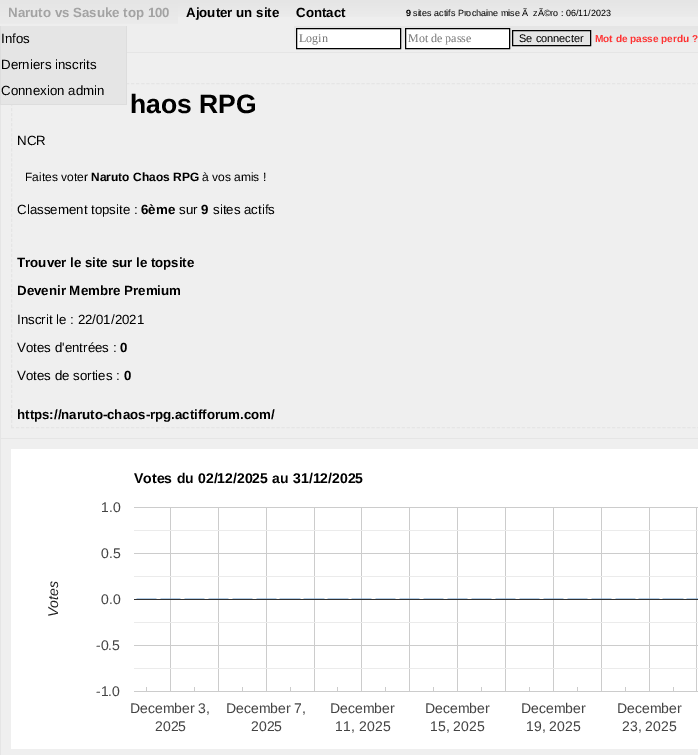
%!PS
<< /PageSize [698 755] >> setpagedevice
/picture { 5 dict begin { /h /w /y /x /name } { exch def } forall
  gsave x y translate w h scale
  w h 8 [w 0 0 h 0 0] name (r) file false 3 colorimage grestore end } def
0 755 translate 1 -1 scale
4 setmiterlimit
0.933 setgray
0 0 698 755 rectfill
gsave newpath 661 0 moveto 698 0 lineto 698 17 lineto 661 17 lineto closepath clip newpath
<< /ShadingType 2 /ColorSpace /DeviceRGB /Coords [0 0 0 26] /Extend [true true] /Function << /FunctionType 2 /Domain [0 1] /C0 [0.898 0.898 0.898] /C1 [0.937 0.937 0.937] /N 1 >> >> shfill grestore
gsave newpath 0 0 moveto 178 0 lineto 178 24 lineto 0 24 lineto closepath clip newpath
<< /ShadingType 2 /ColorSpace /DeviceRGB /Coords [0 0 0 26] /Extend [true true] /Function << /FunctionType 2 /Domain [0 1] /C0 [0.898 0.898 0.898] /C1 [0.925 0.925 0.925] /N 1 >> >> shfill grestore
/LiberationSans-Bold [13.3 0 0 -13.3 0 0] selectfont
0.639 setgray
8 17 moveto (Naruto vs Sasuke top 100) show
0.898 setgray
0 52 698 703 rectfill
0.937 setgray
1 53 697 385 rectfill
0.898 setgray
[3 2.01] 0 setdash
newpath 11 83.5 moveto 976 83.5 lineto stroke
0.867 setgray
126 26 1 79 rectfill
0.898 setgray
newpath 11 427.5 moveto 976 427.5 lineto stroke
[3 2.03] 0 setdash
newpath 11.5 83 moveto 11.5 428 lineto stroke
0.867 setgray
0 104 127 1 rectfill
0 26 1 79 rectfill
0.898 setgray
1 26 125 26 rectfill
/LiberationSans-Regular [13.3 0 0 -13.3 0 0] selectfont
0 setgray
1 43 moveto (Infos) show
0.898 setgray
1 53 125 51 rectfill
0 setgray
1 69 moveto (Derniers inscrits) show
1 95 moveto (Connexion admin) show
gsave newpath 178 0 moveto 288 0 lineto 288 17 lineto 178 17 lineto closepath clip newpath
<< /ShadingType 2 /ColorSpace /DeviceRGB /Coords [178 0 178 26] /Extend [true true] /Function << /FunctionType 2 /Domain [0 1] /C0 [0.898 0.898 0.898] /C1 [0.937 0.937 0.937] /N 1 >> >> shfill grestore
/LiberationSans-Bold [13.3 0 0 -13.3 0 0] selectfont
186 17 moveto (Ajouter un site) show
gsave newpath 288 0 moveto 353 0 lineto 353 17 lineto 288 17 lineto closepath clip newpath
<< /ShadingType 2 /ColorSpace /DeviceRGB /Coords [288 0 288 26] /Extend [true true] /Function << /FunctionType 2 /Domain [0 1] /C0 [0.898 0.898 0.898] /C1 [0.937 0.937 0.937] /N 1 >> >> shfill grestore
296 17 moveto (Contact) show
gsave newpath 353 0 moveto 403 0 lineto 403 17 lineto 353 17 lineto closepath clip newpath
<< /ShadingType 2 /ColorSpace /DeviceRGB /Coords [353 0 353 26] /Extend [true true] /Function << /FunctionType 2 /Domain [0 1] /C0 [0.898 0.898 0.898] /C1 [0.937 0.937 0.937] /N 1 >> >> shfill grestore
gsave newpath 403 0 moveto 611 0 lineto 611 17 lineto 403 17 lineto closepath clip newpath
<< /ShadingType 2 /ColorSpace /DeviceRGB /Coords [403 0 403 26] /Extend [true true] /Function << /FunctionType 2 /Domain [0 1] /C0 [0.898 0.898 0.898] /C1 [0.937 0.937 0.937] /N 1 >> >> shfill grestore
/LiberationSans-Bold [9 0 0 -9 0 0] selectfont
406 16 moveto (9) show
/LiberationSans-Regular [9 0 0 -9 0 0] selectfont
413 16 moveto (sites actifs Prochaine mise Ã  zÃ©ro : 06/11/2023) show
gsave newpath 611 0 moveto 661 0 lineto 661 17 lineto 611 17 lineto closepath clip newpath
<< /ShadingType 2 /ColorSpace /DeviceRGB /Coords [611 0 611 26] /Extend [true true] /Function << /FunctionType 2 /Domain [0 1] /C0 [0.898 0.898 0.898] /C1 [0.937 0.937 0.937] /N 1 >> >> shfill grestore
gsave newpath 294 26 moveto 698 26 lineto 698 43 lineto 294 43 lineto closepath clip newpath
<< /ShadingType 2 /ColorSpace /DeviceRGB /Coords [294 26 294 52] /Extend [true true] /Function << /FunctionType 2 /Domain [0 1] /C0 [0.898 0.898 0.898] /C1 [0.937 0.937 0.937] /N 1 >> >> shfill grestore
1 setgray
newpath 296.5 28.5 moveto 400.5 28.5 lineto 400.5 48.5 lineto 296.5 48.5 lineto closepath gsave fill grestore
0 setgray
[] 0 setdash
stroke
/LiberationSerif-Regular [12 0 0 -12 0 0] selectfont
0.459 setgray
299 42 moveto (Login) show
1 setgray
newpath 405.5 28.5 moveto 509.5 28.5 lineto 509.5 48.5 lineto 405.5 48.5 lineto closepath gsave fill grestore
0 setgray
stroke
0.459 setgray
408 42 moveto (Mot de passe) show
0.898 setgray
513 32 77 13 rectfill
0 setgray
512.5 30.5 78 15 rectstroke
/LiberationSans-Regular [11 0 0 -11 0 0] selectfont
519 42 moveto (Se connecter) show
/LiberationSans-Bold [10 0 0 -10 0 0] selectfont
1 0.2 0.2 setrgbcolor
595 42 moveto (Mot de passe perdu ?) show
/LiberationSans-Bold [26.5 0 0 -26.5 0 0] selectfont
0 setgray
130 113 moveto (haos RPG) show
/LiberationSans-Regular [13.3 0 0 -13.3 0 0] selectfont
17 145 moveto (NCR) show
/LiberationSans-Regular [12 0 0 -12 0 0] selectfont
25 181 moveto (Faites voter) show
/LiberationSans-Bold [12 0 0 -12 0 0] selectfont
91 181 moveto (Naruto Chaos RPG) show
/LiberationSans-Regular [12 0 0 -12 0 0] selectfont
202 181 moveto (à vos amis !) show
/LiberationSans-Regular [13.3 0 0 -13.3 0 0] selectfont
17 214 moveto (Classement topsite :) show
/LiberationSans-Bold [13.3 0 0 -13.3 0 0] selectfont
141 214 moveto (6ème) show
/LiberationSans-Regular [13.3 0 0 -13.3 0 0] selectfont
179 214 moveto (sur) show
/LiberationSans-Bold [13.3 0 0 -13.3 0 0] selectfont
201 214 moveto (9) show
/LiberationSans-Regular [13.3 0 0 -13.3 0 0] selectfont
213 214 moveto (sites actifs) show
/LiberationSans-Bold [13.3 0 0 -13.3 0 0] selectfont
17 267 moveto (Trouver le site sur le topsite) show
17 295 moveto (Devenir Membre Premium) show
/LiberationSans-Regular [13.3 0 0 -13.3 0 0] selectfont
17 324 moveto (Inscrit le : 22/01/2021) show
17 352 moveto (Votes d'entrées :) show
/LiberationSans-Bold [13.3 0 0 -13.3 0 0] selectfont
120 352 moveto (0) show
/LiberationSans-Regular [13.3 0 0 -13.3 0 0] selectfont
17 380 moveto (Votes de sorties :) show
/LiberationSans-Bold [13.3 0 0 -13.3 0 0] selectfont
124 380 moveto (0) show
17 419 moveto (https://naruto-chaos-rpg.actifforum.com/) show
0.937 setgray
1 439 697 316 rectfill
(img1.rgb) 11 449 687 300 picture
/LiberationSans-Bold [14 0 0 -14 0 0] selectfont
0 setgray
134 483 moveto 0.5 0 32 (Votes du 02/12/2025 au 31/12/2025) widthshow
/LiberationSans-Regular [14 0 0 -14 0 0] selectfont
0.267 setgray
101 512 moveto (1.0) show
101 558 moveto (0.5) show
/LiberationSans-Italic [14 0 0 -14 0 0] selectfont
0.133 setgray
gsave 58 617 translate -90 rotate 0 0 moveto (Votes) show grestore
/LiberationSans-Regular [14 0 0 -14 0 0] selectfont
0.267 setgray
101 604 moveto (0.0) show
96 650 moveto (-0.5) show
96 696 moveto (-1.0) show
130 713 moveto (December 3,) show
226 713 moveto (December 7,) show
330 713 moveto (December) show
425 713 moveto (December) show
521 713 moveto (December) show
617 713 moveto (December) show
155 731 moveto (2025) show
251 731 moveto (2025) show
335 731 moveto 1 0 32 (11, 2025) widthshow
430 731 moveto (15, 2025) show
526 731 moveto (19, 2025) show
622 731 moveto (23, 2025) show
showpage
